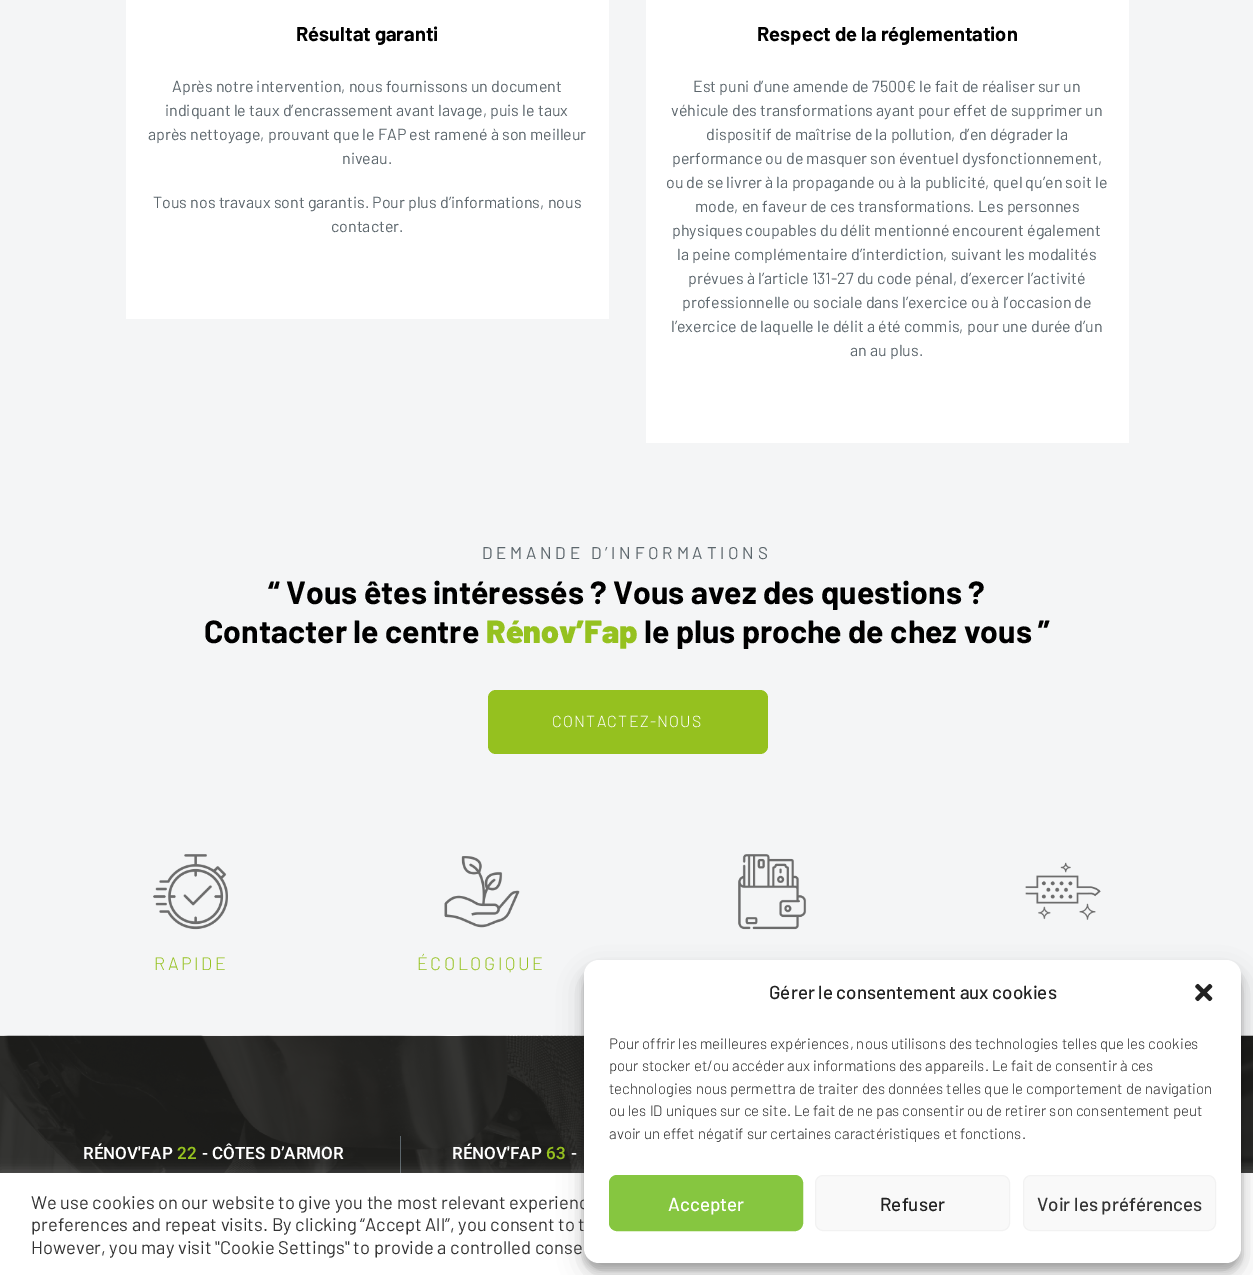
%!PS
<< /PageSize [1253 1275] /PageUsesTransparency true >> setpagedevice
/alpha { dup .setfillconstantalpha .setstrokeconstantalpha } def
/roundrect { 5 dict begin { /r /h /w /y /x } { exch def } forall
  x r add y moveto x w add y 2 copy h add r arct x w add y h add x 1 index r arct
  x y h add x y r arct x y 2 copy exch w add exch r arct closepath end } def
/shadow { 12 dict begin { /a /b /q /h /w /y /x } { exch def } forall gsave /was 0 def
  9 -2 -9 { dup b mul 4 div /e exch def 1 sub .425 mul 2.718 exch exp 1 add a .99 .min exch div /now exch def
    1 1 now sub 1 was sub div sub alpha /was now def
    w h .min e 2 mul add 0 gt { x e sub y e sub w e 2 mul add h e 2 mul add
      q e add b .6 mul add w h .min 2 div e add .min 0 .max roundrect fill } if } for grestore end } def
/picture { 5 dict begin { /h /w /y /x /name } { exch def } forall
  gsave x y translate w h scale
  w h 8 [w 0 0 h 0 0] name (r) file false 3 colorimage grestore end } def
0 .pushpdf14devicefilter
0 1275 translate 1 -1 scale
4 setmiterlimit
0.957 0.961 0.965 setrgbcolor
0 0 1253 1275 rectfill
1 setgray
126 0 483 319 rectfill
/Barlow-Bold [20 0 0 -20 0 0] selectfont
0 setgray
296 41 moveto (Résultat garanti) show
/Barlow-Regular [16 0 0 -16 0 0] selectfont
0.361 0.4 0.424 setrgbcolor
172 92 moveto (Après notre intervention, nous fournissons un document) show
165 116 moveto (indiquant le taux d’encrassement avant lavage, puis le taux) show
148 140 moveto (après nettoyage, prouvant que le FAP est ramené à son meilleur) show
342 164 moveto (niveau.) show
153 208 moveto (Tous nos travaux sont garantis. Pour plus d’informations, nous) show
331 232 moveto (contacter.) show
1 setgray
646 0 483 443 rectfill
/Barlow-Bold [20 0 0 -20 0 0] selectfont
0 setgray
757 41 moveto (Respect de la réglementation) show
/Barlow-Regular [16 0 0 -16 0 0] selectfont
0.361 0.4 0.424 setrgbcolor
693 92 moveto (Est puni d’une amende de 7500€ le fait de réaliser sur un) show
671 116 moveto (véhicule des transformations ayant pour effet de supprimer un) show
706 140 moveto (dispositif de maîtrise de la pollution, d’en dégrader la) show
672 164 moveto (performance ou de masquer son éventuel dysfonctionnement,) show
666 188 moveto (ou de se livrer à la propagande ou à la publicité, quel qu’en soit le) show
695 212 moveto (mode, en faveur de ces transformations. Les personnes) show
672 236 moveto (physiques coupables du délit mentionné encourent également) show
677 260 moveto (la peine complémentaire d’interdiction, suivant les modalités) show
688 284 moveto (prévues à l’article 131-27 du code pénal, d’exercer l’activité) show
682 308 moveto (professionnelle ou sociale dans l’exercice ou à l’occasion de) show
671 332 moveto (l’exercice de laquelle le délit a été commis, pour une durée d’un) show
850 356 moveto (an au plus.) show
/Barlow-Regular [17 0 0 -17 0 0] selectfont
482 559 moveto 3.75 0 (DEMANDE D’INFORMATIONS) ashow
/Barlow-Bold [32 0 0 -32 0 0] selectfont
0 setgray
268 604 moveto (“ Vous êtes intéressés ? Vous avez des questions ?) show
204 643 moveto (Contacter le centre) show
/Barlow-Black [32 0 0 -32 0 0] selectfont
0.584 0.757 0.122 setrgbcolor
486 643 moveto (Rénov’Fap) show
/Barlow-Bold [32 0 0 -32 0 0] selectfont
0 setgray
644 643 moveto (le plus proche de chez vous ”) show
0.584 0.757 0.122 setrgbcolor
488 690 280 64 8 roundrect fill
/Barlow-Light [16 0 0 -16 0 0] selectfont
1 setgray
552 727 moveto 1.25 0 (CONTACTEZ-NOUS) ashow
(img1.rgb) 738 854 69 76 picture
(img2.rgb) 1025 862 76 58 picture
(img3.rgb) 153 854 75 76 picture
/Barlow-Light [18 0 0 -18 0 0] selectfont
0.584 0.757 0.122 setrgbcolor
154 970 moveto 2.5 0 (RAPIDE) ashow
(img4.rgb) 444 856 76 72 picture
417 970 moveto 2.5 0 (ÉCOLOGIQUE) ashow
(img5.rgb) 0 1035 1253 138 picture
/Heebo-SemiBold [17 0 0 -17 0 0] selectfont
1 setgray
83 1159 moveto (RÉNOV'FAP) show
0.584 0.757 0.122 setrgbcolor
177 1159 moveto (22) show
1 setgray
202 1159 moveto (- CÔTES D’ARMOR) show
0.361 0.4 0.424 setrgbcolor
400 1136 1 37 rectfill
1 setgray
452 1159 moveto (RÉNOV'FAP) show
0.584 0.757 0.122 setrgbcolor
546 1159 moveto (63) show
1 setgray
571 1159 moveto (-) show
0.675 0.671 0.671 setrgbcolor
0 1171 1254 103 0 6 0.3 shadow
1 setgray
0 1173 1253 102 rectfill
0 setgray
584 968 657 302 15 4 0.23 shadow
584 973 657 302 15 12.5 0.19 shadow
/Barlow-Regular [18.3 0 0 -18.3 0 0] selectfont
0.2 setgray
31 1209 moveto (We use cookies on our website to give you the most relevant experienc) show
31 1231 moveto (preferences and repeat visits. By clicking “Accept All”, you consent to t) show
1 setgray
584 960 657 303 15 roundrect fill
/Barlow-Medium [18.75 0 0 -18.75 0 0] selectfont
0.133 setgray
769 999 moveto (Gérer le consentement aux cookies) show
(img6.rgb) 1195 983 18 19 picture
/Barlow-Light [15 0 0 -15 0 0] selectfont
609 1049 moveto (Pour offrir les meilleures expériences, nous utilisons des technologies telles que les cookies) show
609 1071 moveto (pour stocker et/ou accéder aux informations des appareils. Le fait de consentir à ces) show
609 1094 moveto (technologies nous permettra de traiter des données telles que le comportement de navigation) show
609 1116 moveto (ou les ID uniques sur ce site. Le fait de ne pas consentir ou de retirer son consentement peut) show
609 1139 moveto (avoir un effet négatif sur certaines caractéristiques et fonctions.) show
0.525 0.776 0.251 setrgbcolor
609.5 1175.5 193 55 7.5 roundrect gsave fill grestore
stroke
/Barlow-Medium [18.75 0 0 -18.75 0 0] selectfont
1 setgray
668 1211 moveto (Accepter) show
0.976 setgray
815.5 1175.5 194 55 7.5 roundrect gsave fill grestore
0.949 setgray
stroke
0.133 setgray
880 1211 moveto (Refuser) show
0.976 setgray
1023.5 1175.5 192 55 7.5 roundrect gsave fill grestore
0.949 setgray
stroke
0.2 setgray
1037 1211 moveto (Voir les préférences) show
/Barlow-Regular [18.3 0 0 -18.3 0 0] selectfont
31 1254 moveto (However, you may visit "Cookie Settings" to provide a controlled conse) show
.poppdf14devicefilter showpage
